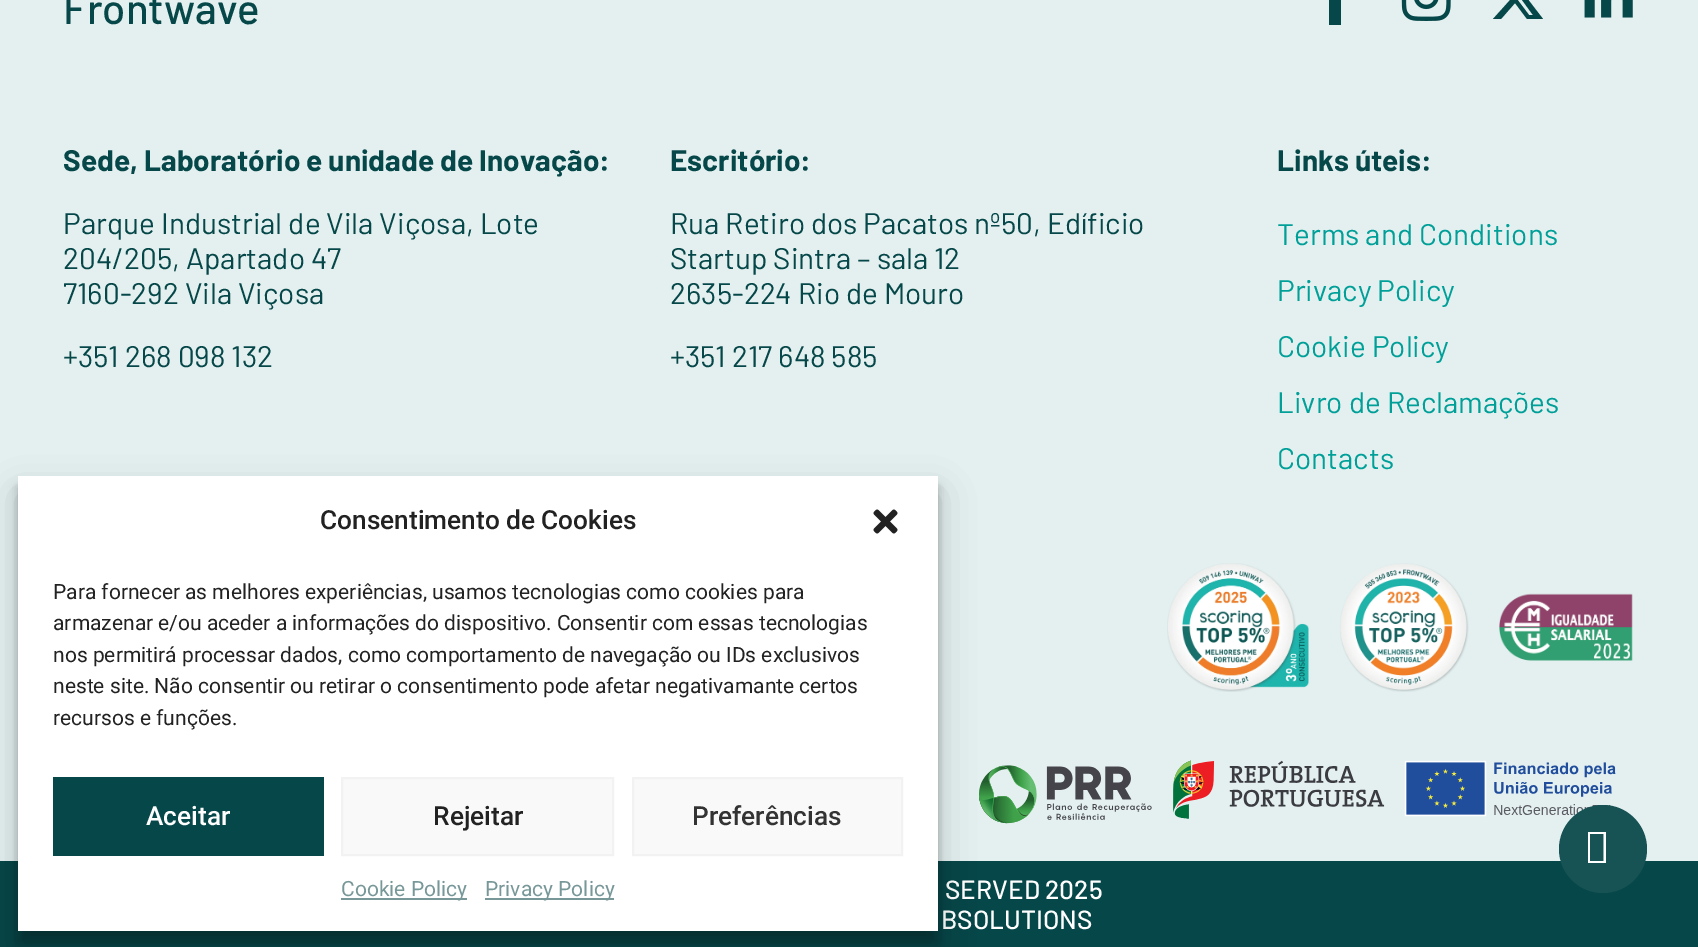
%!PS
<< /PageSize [1698 947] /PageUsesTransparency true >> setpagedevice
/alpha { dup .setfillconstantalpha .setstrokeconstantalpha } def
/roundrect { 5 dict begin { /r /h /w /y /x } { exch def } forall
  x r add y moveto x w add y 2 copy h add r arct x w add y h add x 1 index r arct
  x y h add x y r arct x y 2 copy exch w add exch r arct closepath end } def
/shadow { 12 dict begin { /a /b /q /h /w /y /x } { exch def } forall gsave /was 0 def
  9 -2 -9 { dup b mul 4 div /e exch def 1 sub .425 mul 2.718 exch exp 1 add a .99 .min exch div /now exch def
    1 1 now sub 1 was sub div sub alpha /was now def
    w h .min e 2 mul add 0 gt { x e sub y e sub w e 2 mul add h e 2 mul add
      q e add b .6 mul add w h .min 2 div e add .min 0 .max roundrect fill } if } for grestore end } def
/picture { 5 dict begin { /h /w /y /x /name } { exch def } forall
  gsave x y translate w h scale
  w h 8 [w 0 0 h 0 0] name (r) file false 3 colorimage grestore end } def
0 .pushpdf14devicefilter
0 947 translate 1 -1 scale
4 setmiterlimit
0.894 0.941 0.941 setrgbcolor
0 0 1698 947 rectfill
/Barlow-Medium [42 0 0 -42 0 0] selectfont
0.024 0.278 0.286 setrgbcolor
63 24 moveto (Frontwave) show
1329 0 12 25 rectfill
(img1.rgb) 1401 0 50 21 picture
newpath 1532 -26 moveto 1540 -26 lineto 1523 -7 lineto 1543 19 lineto 1527 19 lineto 1515 3 lineto 1501 19 lineto 1493 19 lineto 1511 -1 lineto 1492 -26 lineto 1508 -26 lineto 1519 -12 lineto closepath 1529 15 moveto 1533 15 lineto 1506 -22 lineto 1501 -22 lineto closepath fill
(img2.rgb) 1584 0 49 18 picture
/Barlow-Bold [29.75 0 0 -29.75 0 0] selectfont
63 171 moveto (Sede, Laboratório e unidade de Inovação:) show
/Barlow-Regular [29.75 0 0 -29.75 0 0] selectfont
63 234 moveto (Parque Industrial de Vila Viçosa, Lote) show
63 269 moveto (204/205, Apartado 47) show
63 304 moveto (7160-292 Vila Viçosa) show
63 367 moveto (+351 268 098 132) show
/Barlow-Bold [29.75 0 0 -29.75 0 0] selectfont
670 171 moveto (Escritório:) show
/Barlow-Regular [29.75 0 0 -29.75 0 0] selectfont
670 234 moveto (Rua Retiro dos Pacatos nº50, Edíficio) show
670 269 moveto (Startup Sintra – sala 12) show
670 304 moveto (2635-224 Rio de Mouro) show
670 367 moveto (+351 217 648 585) show
/Barlow-Bold [29.75 0 0 -29.75 0 0] selectfont
1277 171 moveto (Links úteis:) show
/Barlow-Regular [29.75 0 0 -29.75 0 0] selectfont
0 0.624 0.596 setrgbcolor
1277 245 moveto (Terms and Conditions) show
1277 301 moveto (Privacy Policy) show
1277 357 moveto (Cookie Policy) show
1277 413 moveto (Livro de Reclamações) show
1277 469 moveto (Contacts) show
(img3.rgb) 1167 563 142 129 picture
(img4.rgb) 1340 563 129 129 picture
(img5.rgb) 1499 593 134 68 picture
(img6.rgb) 979 760 637 64 picture
0.024 0.278 0.286 setrgbcolor
0 861 1698 86 rectfill
/Barlow-Medium [26.25 0 0 -26.25 0 0] selectfont
1 setgray
945 899 moveto (SERVED 2025) show
941 929 moveto (BSOLUTIONS) show
0 setgray
18 487 920 455 0 5 0.23 shadow
18 494 920 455 0 17.5 0.19 shadow
1 setgray
18 476 920 455 rectfill
/Roboto-Medium [26.25 0 0 -26.25 0 0] selectfont
0.133 setgray
320 529 moveto (Consentimento de Cookies) show
(img7.rgb) 873 509 25 25 picture
/Roboto-Regular [21 0 0 -21 0 0] selectfont
53 599 moveto (Para fornecer as melhores experiências, usamos tecnologias como cookies para) show
53 630 moveto (armazenar e/ou aceder a informações do dispositivo. Consentir com essas tecnologias) show
53 662 moveto (nos permitirá processar dados, como comportamento de navegação ou IDs exclusivos) show
53 693 moveto (neste site. Não consentir ou retirar o consentimento pode afetar negativamante certos) show
53 725 moveto (recursos e funções.) show
0.024 0.278 0.286 setrgbcolor
53 777 271 79 rectfill
/Roboto-Medium [26.25 0 0 -26.25 0 0] selectfont
1 setgray
146 825 moveto (Aceitar) show
0.976 setgray
newpath 342 778 moveto 613 778 lineto 613 855 lineto 342 855 lineto closepath gsave fill grestore
0.949 setgray
2 setlinewidth
stroke
0.133 setgray
433 825 moveto (Rejeitar) show
0.976 setgray
newpath 633 778 moveto 902 778 lineto 902 855 lineto 633 855 lineto closepath gsave fill grestore
0.949 setgray
stroke
0.2 setgray
692 825 moveto (Preferências) show
0.467 0.592 0.596 setrgbcolor
341 898 126 2 rectfill
/Roboto-Regular [21 0 0 -21 0 0] selectfont
341 896 moveto (Cookie Policy) show
485 898 129 2 rectfill
485 896 moveto (Privacy Policy) show
0.09 0.322 0.329 setrgbcolor
newpath 1603 849 44 0 360 arc closepath fill
1 setgray
newpath 1588 863 moveto 1588 832 lineto 1606 832 lineto 1606 863 lineto closepath 1590 861 moveto 1603.5 861 lineto 1603.5 834 lineto 1590 834 lineto closepath fill
.poppdf14devicefilter showpage
